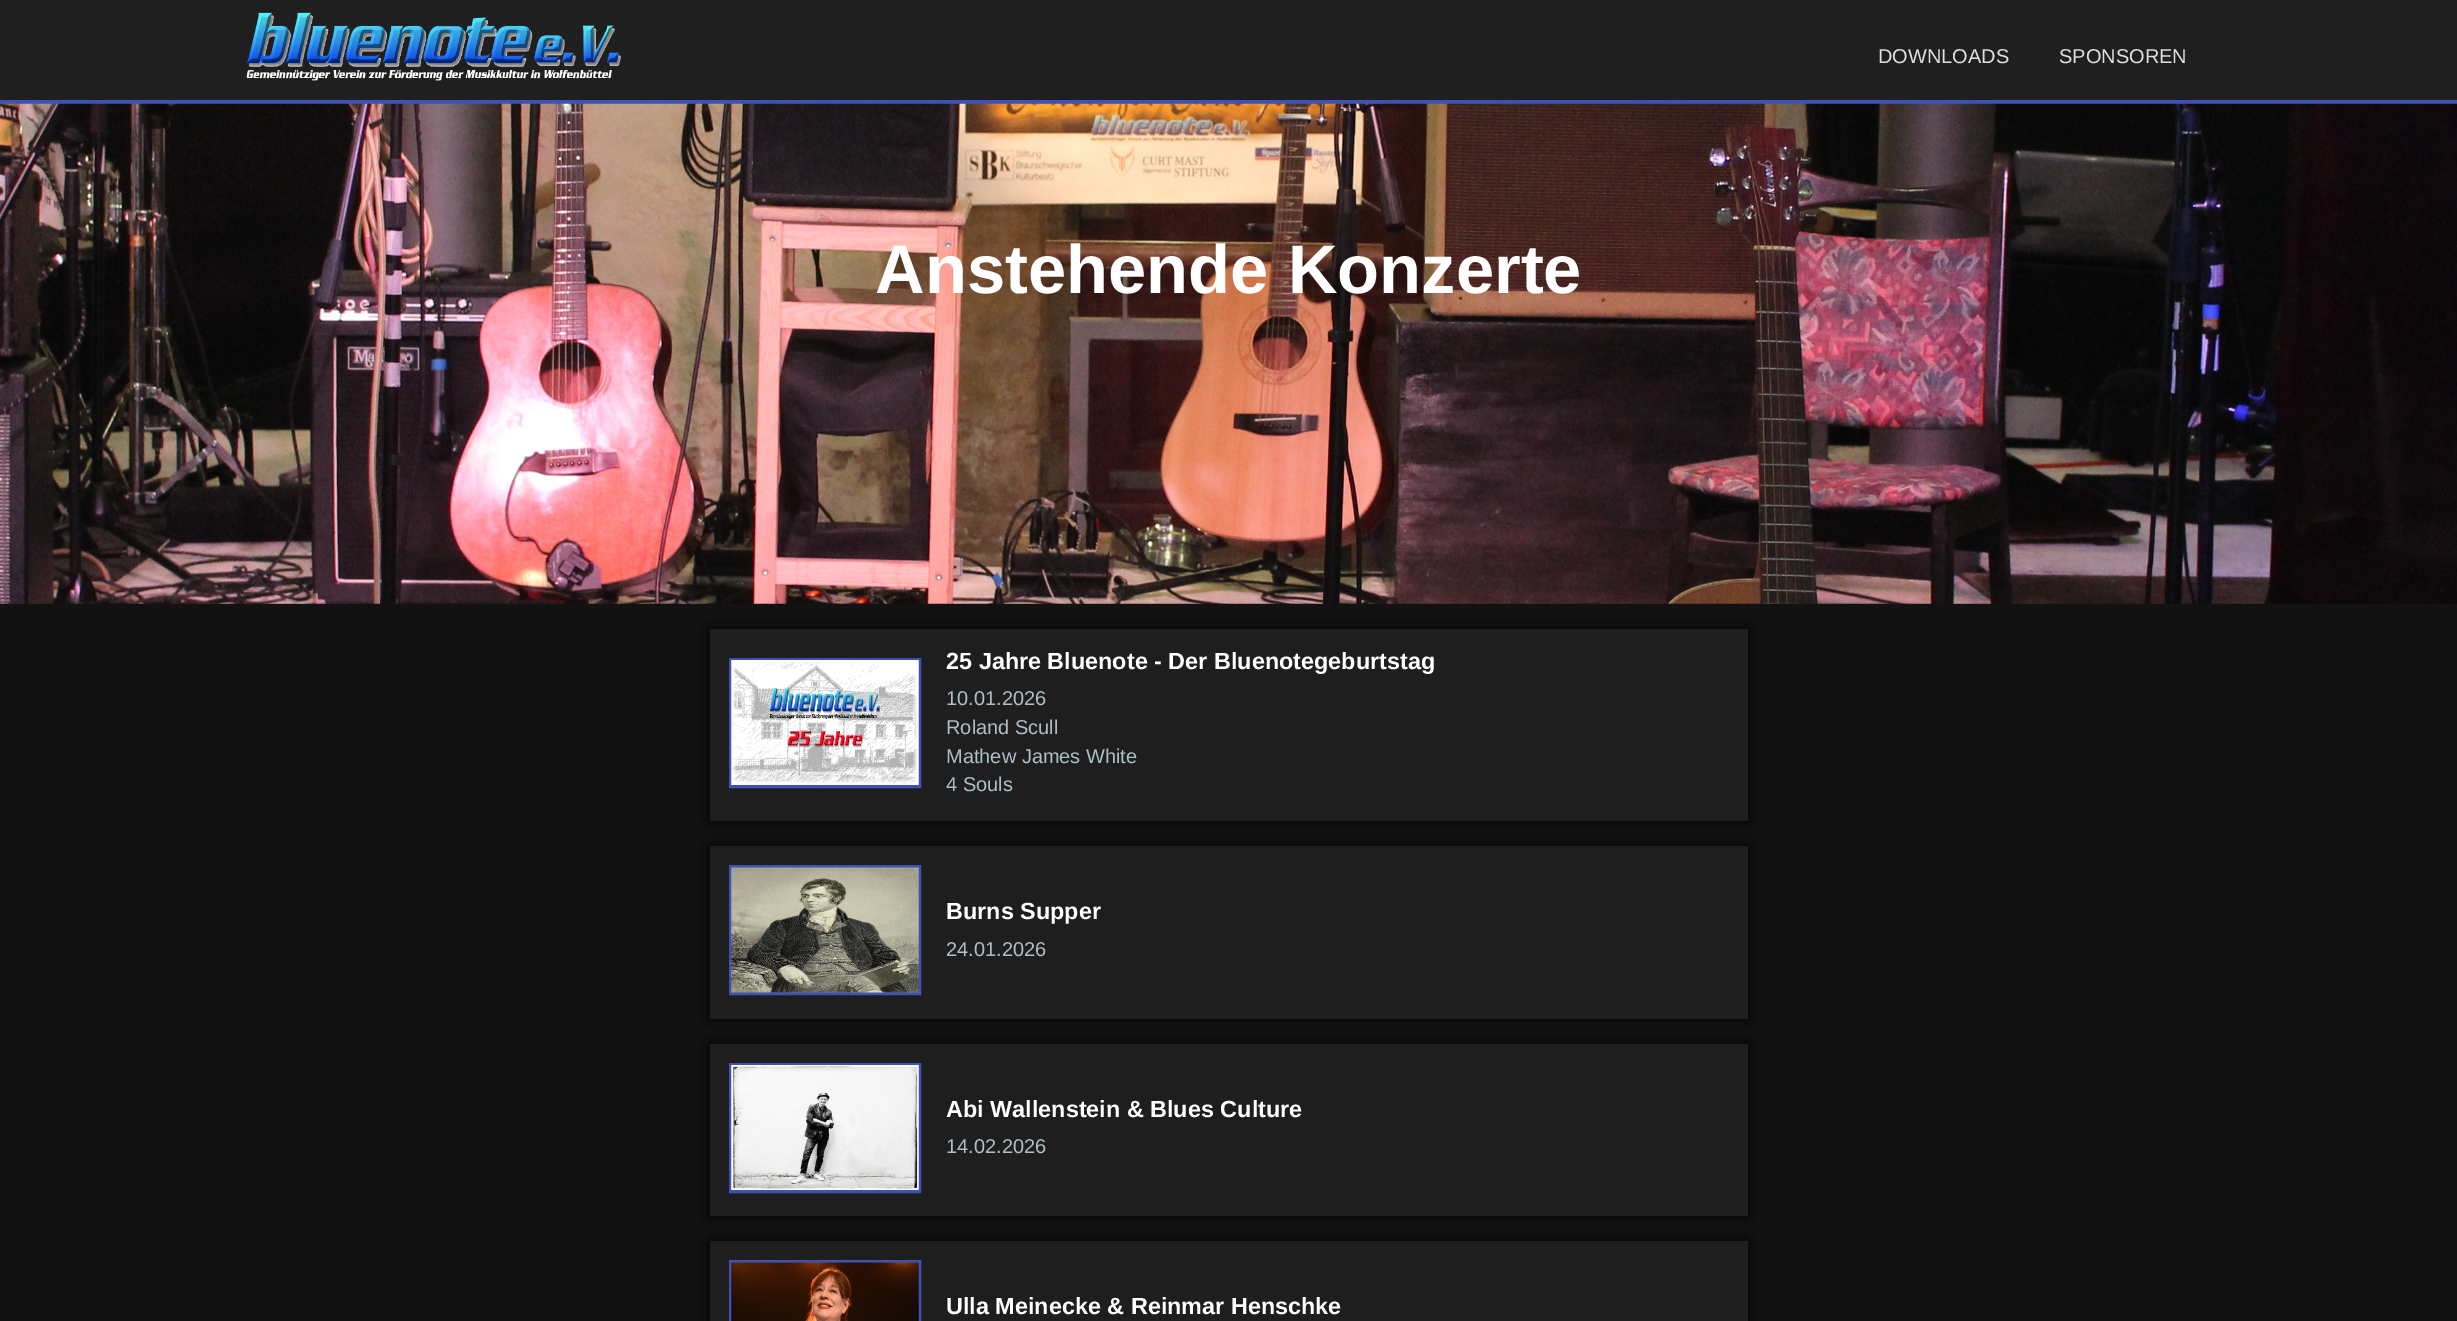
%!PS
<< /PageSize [2457 1321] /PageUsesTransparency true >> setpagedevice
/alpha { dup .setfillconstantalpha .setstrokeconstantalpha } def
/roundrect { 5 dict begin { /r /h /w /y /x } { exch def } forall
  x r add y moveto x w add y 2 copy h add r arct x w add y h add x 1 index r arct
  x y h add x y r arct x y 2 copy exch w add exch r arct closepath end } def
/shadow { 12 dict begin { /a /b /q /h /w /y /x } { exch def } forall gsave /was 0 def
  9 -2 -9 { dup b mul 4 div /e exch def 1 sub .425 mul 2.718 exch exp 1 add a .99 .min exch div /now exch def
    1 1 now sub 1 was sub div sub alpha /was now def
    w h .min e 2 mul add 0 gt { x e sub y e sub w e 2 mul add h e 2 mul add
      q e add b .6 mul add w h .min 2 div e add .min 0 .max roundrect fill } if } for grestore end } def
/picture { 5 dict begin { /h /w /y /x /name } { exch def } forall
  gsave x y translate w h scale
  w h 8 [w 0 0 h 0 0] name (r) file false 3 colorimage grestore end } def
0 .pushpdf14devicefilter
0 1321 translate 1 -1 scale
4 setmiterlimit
0.071 setgray
0 0 2457 1321 rectfill
0.122 setgray
0 0 2457 100 rectfill
0.247 0.318 0.71 setrgbcolor
0 100 2457 4 rectfill
(img1.rgb) 246 12 375 69 picture
/LiberationSans-Regular [20 0 0 -20 0 0] selectfont
0.878 setgray
1878 63 moveto (DOWNLOADS) show
2059 63 moveto (SPONSOREN) show
(img2.rgb) 0 103 2457 501 picture
/LiberationSans-Bold [68.75 0 0 -68.75 0 0] selectfont
1 setgray
875 293 moveto (Anstehende Konzerte) show
0 setgray
710 629 1038 192 0 6 1 shadow
0.118 setgray
710 629 1038 192 rectfill
0.247 0.318 0.71 setrgbcolor
3 setlinewidth
730.5 659.5 189 127 rectstroke
(img3.rgb) 731 660 188 125 picture
/LiberationSans-Bold [23.4 0 0 -23.4 0 0] selectfont
1 setgray
946 669 moveto (25 Jahre Bluenote - Der Bluenotegeburtstag) show
/LiberationSans-Regular [20 0 0 -20 0 0] selectfont
0.69 0.745 0.773 setrgbcolor
946 705 moveto (10.01.2026) show
946 734 moveto (Roland Scull) show
946 763 moveto (Mathew James White) show
946 791 moveto (4 Souls) show
0 setgray
710 846 1038 173 0 6 1 shadow
0.118 setgray
710 846 1038 173 rectfill
0.247 0.318 0.71 setrgbcolor
730.5 866.5 189 127 rectstroke
(img4.rgb) 731 867 188 126 picture
/LiberationSans-Bold [23.4 0 0 -23.4 0 0] selectfont
1 setgray
946 919 moveto (Burns Supper) show
/LiberationSans-Regular [20 0 0 -20 0 0] selectfont
0.69 0.745 0.773 setrgbcolor
946 956 moveto (24.01.2026) show
0 setgray
710 1044 1038 172 0 6 1 shadow
0.118 setgray
710 1044 1038 172 rectfill
0.247 0.318 0.71 setrgbcolor
730.5 1064.5 189 127 rectstroke
(img5.rgb) 731 1065 188 125 picture
/LiberationSans-Bold [23.4 0 0 -23.4 0 0] selectfont
1 setgray
946 1117 moveto (Abi Wallenstein & Blues Culture) show
/LiberationSans-Regular [20 0 0 -20 0 0] selectfont
0.69 0.745 0.773 setrgbcolor
946 1153 moveto (14.02.2026) show
0 setgray
710 1241 1038 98 0 6 1 shadow
0.118 setgray
710 1241 1038 80 rectfill
0.247 0.318 0.71 setrgbcolor
730.5 1261.5 189 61 rectstroke
(img6.rgb) 731 1262 188 59 picture
/LiberationSans-Bold [23.4 0 0 -23.4 0 0] selectfont
1 setgray
946 1314 moveto (Ulla Meinecke & Reinmar Henschke) show
.poppdf14devicefilter showpage
